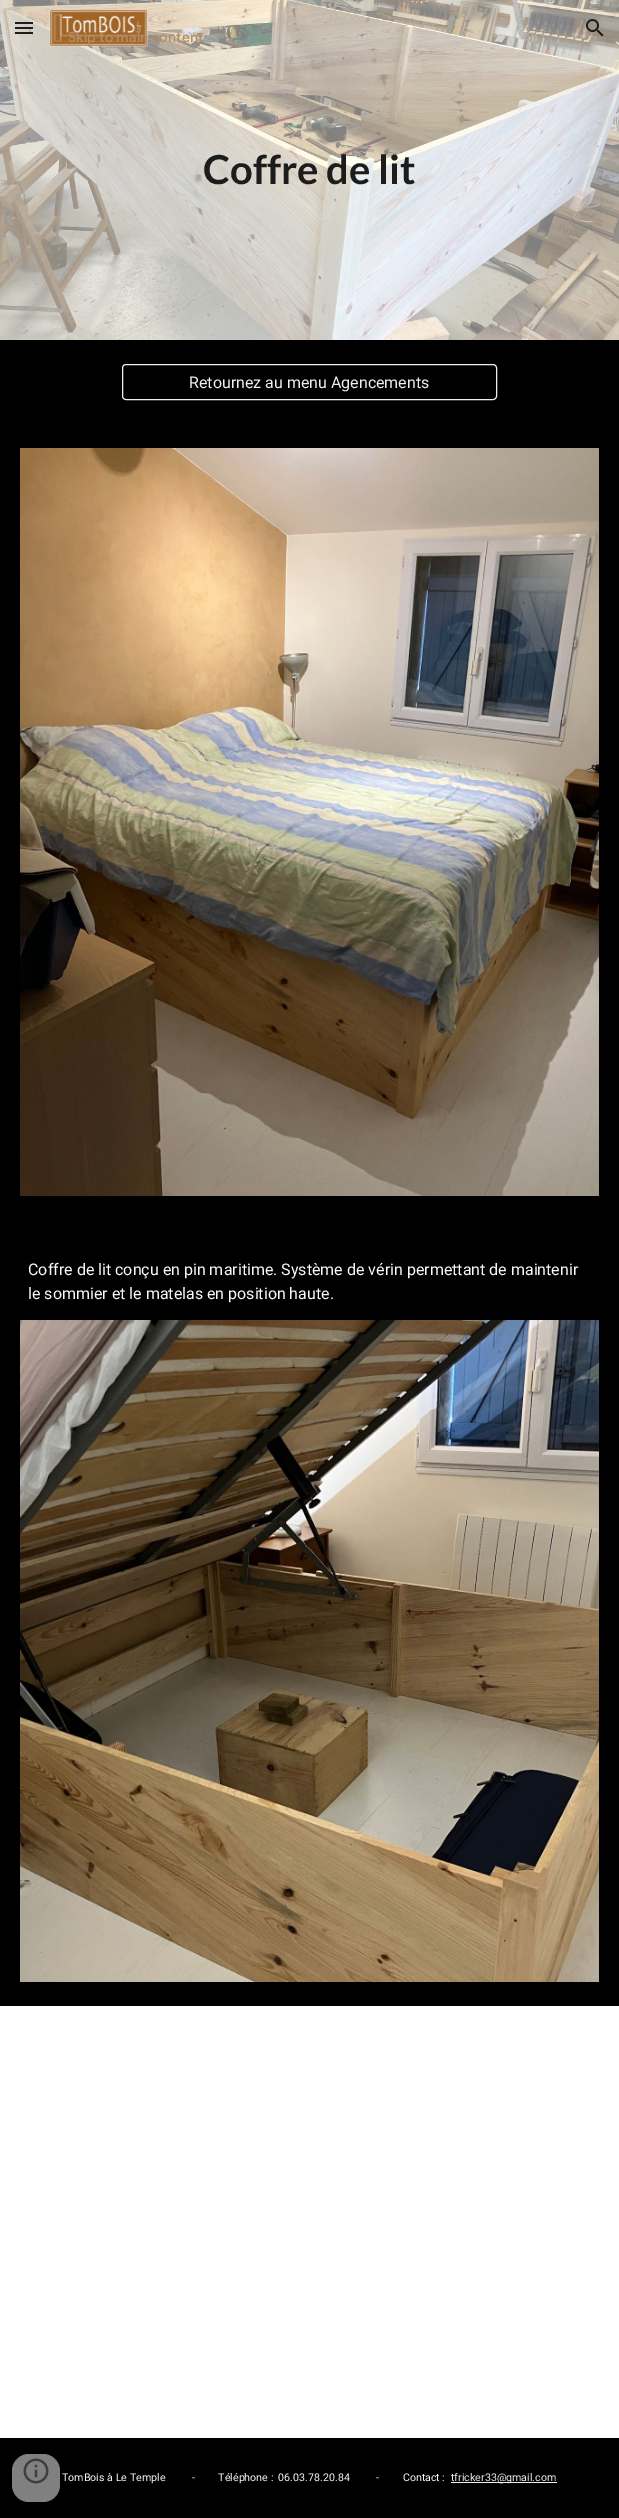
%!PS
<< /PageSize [619 2518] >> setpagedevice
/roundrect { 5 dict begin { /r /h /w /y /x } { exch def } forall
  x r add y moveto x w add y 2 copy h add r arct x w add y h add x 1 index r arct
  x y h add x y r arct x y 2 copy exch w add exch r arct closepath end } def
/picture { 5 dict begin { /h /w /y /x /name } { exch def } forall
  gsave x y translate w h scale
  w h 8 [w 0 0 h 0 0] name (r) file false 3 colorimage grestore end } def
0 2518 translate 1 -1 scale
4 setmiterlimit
1 setgray
0 0 619 2518 rectfill
(img3.rgb) 0 0 619 340 picture
(img1.rgb) 49 9 99 38 picture
/GoogleSans-Medium [14 0 0 -14 0 0] selectfont
0.702 0.561 0.404 setrgbcolor
68 42 moveto 0.1 0 (Skip to main content) ashow
0.773 0.749 0.71 setrgbcolor
531 42 moveto 0.1 0 (i) ashow
0.11 setgray
15 22 18 2 rectfill
15 27 18 2 rectfill
15 32 18 2 rectfill
(img2.rgb) 586 19 18 18 picture
/Lato-Bold [40 0 0 -40 0 0] selectfont
203 184 moveto (Coffre de lit) show
0 setgray
0 340 619 1666 rectfill
0.937 setgray
122.5 364.5 374 35 3.5 roundrect stroke
/Roboto-Regular [16 0 0 -16 0 0] selectfont
189 388 moveto (Retournez au menu Agencements) show
(img4.rgb) 20 448 579 748 picture
0.976 setgray
28 1275 moveto (Coffre de lit conçu en pin maritime. Système de vérin permettant de maintenir) show
28 1299 moveto (le sommier et le matelas en position haute.) show
(img5.rgb) 20 1320 579 662 picture
0 setgray
0 2438 619 80 rectfill
0.502 setgray
12 2454 48 48 17 roundrect fill
(img6.rgb) 23 2458 26 26 picture
/Roboto-Regular [10.65 0 0 -10.65 0 0] selectfont
0.976 setgray
62 2481 moveto (TomBois à Le Temple          -         Téléphone :  06.03.78.20.84          -         Contact :) show
0.937 setgray
451 2482 106 1 rectfill
451 2481 moveto (tfricker33@gmail.com) show
showpage
